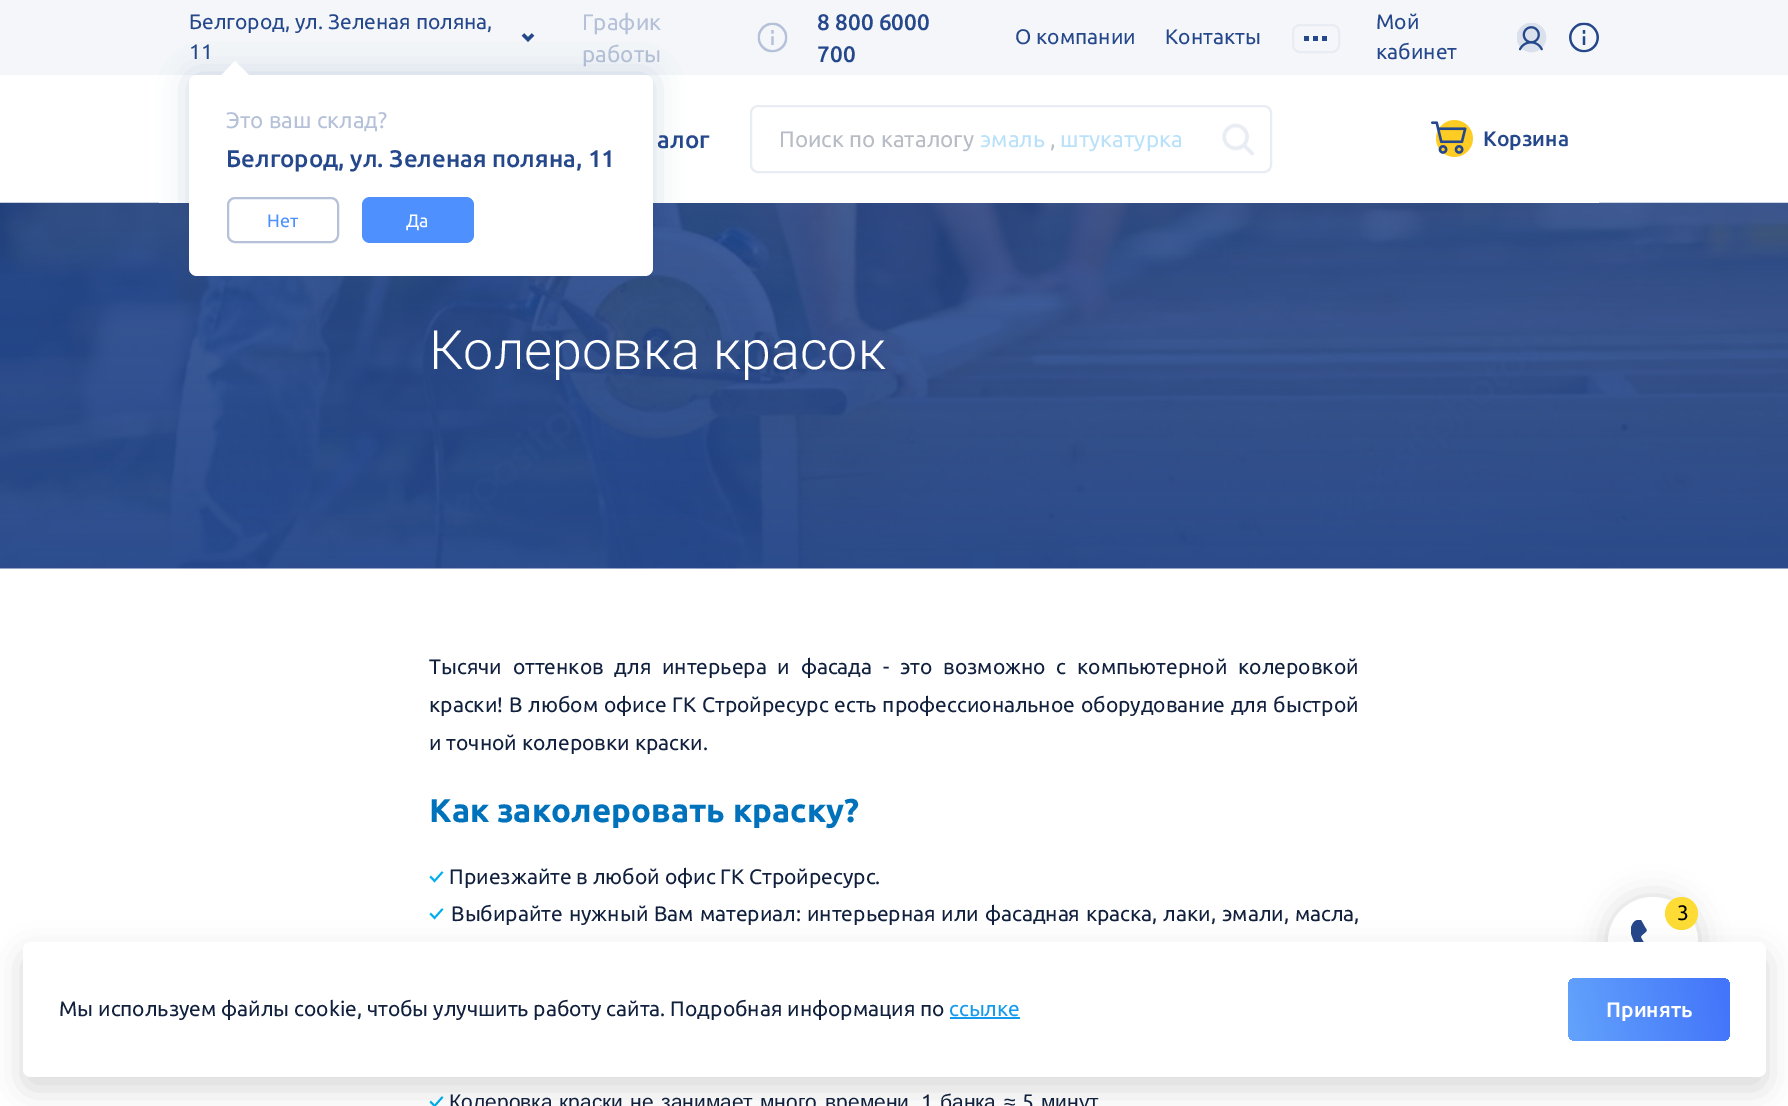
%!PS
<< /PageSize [1788 1106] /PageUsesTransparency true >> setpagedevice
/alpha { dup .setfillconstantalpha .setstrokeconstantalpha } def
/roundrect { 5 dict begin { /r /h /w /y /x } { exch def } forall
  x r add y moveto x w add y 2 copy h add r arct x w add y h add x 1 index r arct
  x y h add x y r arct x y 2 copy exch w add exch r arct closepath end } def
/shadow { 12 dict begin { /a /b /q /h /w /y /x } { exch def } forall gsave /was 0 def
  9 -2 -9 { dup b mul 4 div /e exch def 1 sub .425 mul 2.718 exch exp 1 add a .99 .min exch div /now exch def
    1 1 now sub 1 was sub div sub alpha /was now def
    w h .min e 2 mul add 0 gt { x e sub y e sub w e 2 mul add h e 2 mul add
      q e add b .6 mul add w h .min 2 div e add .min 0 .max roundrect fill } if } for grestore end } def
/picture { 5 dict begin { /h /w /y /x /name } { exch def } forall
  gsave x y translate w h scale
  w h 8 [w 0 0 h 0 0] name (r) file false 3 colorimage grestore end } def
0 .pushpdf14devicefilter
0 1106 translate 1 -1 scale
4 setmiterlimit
1 setgray
0 0 1788 1106 rectfill
0.957 0.965 0.976 setrgbcolor
0 0 1788 75 rectfill
0.145 0.278 0.545 setrgbcolor
3.2 setlinewidth
newpath 523 34.5 moveto 528 39.5 lineto 533 34.5 lineto stroke
/Ubuntu-Regular [21 0 0 -21 0 0] selectfont
189 29 moveto (Белгород, ул. Зеленая поляна,) show
189 59 moveto (11) show
/Ubuntu-Regular [22.5 0 0 -22.5 0 0] selectfont
0.71 0.757 0.847 setrgbcolor
582 30 moveto (График) show
582 62 moveto (работы) show
(img1.rgb) 757 22 31 31 picture
/Ubuntu-Medium [22.5 0 0 -22.5 0 0] selectfont
0.145 0.278 0.545 setrgbcolor
817 30 moveto (8 800 6000) show
817 62 moveto (700) show
/Ubuntu-Regular [21 0 0 -21 0 0] selectfont
1015 44 moveto (О компании) show
1165 44 moveto (Контакты) show
0.91 0.925 0.953 setrgbcolor
2 setlinewidth
1293 25 46 27 7 roundrect stroke
0.145 0.278 0.545 setrgbcolor
1313 36 5 5 rectfill
1304 36 5 5 rectfill
1322 36 5 5 rectfill
1376 29 moveto (Мой) show
1376 59 moveto (кабинет) show
(img2.rgb) 1517 23 30 30 picture
(img3.rgb) 1569 22 30 31 picture
(img6.rgb) 0 202 1788 367 picture
1 setgray
159 202 1440 1 rectfill
0.145 0.278 0.545 setrgbcolor
189 75 464 201 8 15 0.2 shadow
1 setgray
189 75 464 201 8 roundrect fill
newpath 235 61 moveto 256 82 lineto 235 104 lineto 214 83 lineto closepath fill
/Ubuntu-Regular [22.5 0 0 -22.5 0 0] selectfont
0.71 0.757 0.847 setrgbcolor
226 128 moveto (Это ваш склад?) show
/Ubuntu-Medium [24 0 0 -24 0 0] selectfont
0.145 0.278 0.545 setrgbcolor
226 167 moveto (Белгород, ул. Зеленая поляна, 11) show
0.71 0.757 0.847 setrgbcolor
228 198 110 44 7 roundrect stroke
/Ubuntu-Regular [18 0 0 -18 0 0] selectfont
0.302 0.565 0.996 setrgbcolor
267 227 moveto (Нет) show
362 197 112 46 8 roundrect fill
1 setgray
406 227 moveto (Да) show
/Ubuntu-Medium [24 0 0 -24 0 0] selectfont
0.145 0.278 0.545 setrgbcolor
657 148 moveto (алог) show
0.91 0.925 0.953 setrgbcolor
751 106 520 66 7 roundrect stroke
/Ubuntu-Regular [22.5 0 0 -22.5 0 0] selectfont
0.722 0.737 0.773 setrgbcolor
779 147 moveto (Поиск по каталогу) show
0.725 0.882 0.98 setrgbcolor
980 147 moveto (эмаль) show
0.722 0.737 0.773 setrgbcolor
1050 147 moveto (,) show
0.725 0.882 0.98 setrgbcolor
1060 147 moveto (штукатурка) show
(img4.rgb) 1222 123 32 33 picture
(img5.rgb) 1431 120 42 37 picture
/Ubuntu-Medium [21 0 0 -21 0 0] selectfont
0.145 0.278 0.545 setrgbcolor
1483 146 moveto (Корзина) show
/Roboto-Light [54 0 0 -54 0 0] selectfont
1 setgray
429 369 moveto (Колеровка красок) show
/Ubuntu-Regular [21 0 0 -21 0 0] selectfont
0.067 0.125 0.239 setrgbcolor
429 674 moveto 5.9 0 32 (Тысячи оттенков для интерьера и фасада - это возможно с компьютерной колеровкой) widthshow
429 712 moveto 1 0 32 (краски! В любом офисе ГК Стройресурс есть профессиональное оборудование для быстрой) widthshow
429 750 moveto (и точной колеровки краски.) show
/Ubuntu-Bold [33 0 0 -33 0 0] selectfont
0 0.447 0.737 setrgbcolor
429 822 moveto (Как заколеровать краску?) show
/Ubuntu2-Bold [21 0 0 -21 0 0] selectfont
0 0.682 0.937 setrgbcolor
429 884 moveto (✓) show
/Ubuntu-Regular [21 0 0 -21 0 0] selectfont
0.067 0.125 0.239 setrgbcolor
449 884 moveto (Приезжайте в любой офис ГК Стройресурс.) show
/Ubuntu2-Bold [21 0 0 -21 0 0] selectfont
0 0.682 0.937 setrgbcolor
429 921 moveto (✓) show
/Ubuntu-Regular [21 0 0 -21 0 0] selectfont
0.067 0.125 0.239 setrgbcolor
451 921 moveto 1 0 32 (Выбирайте нужный Вам материал: интерьерная или фасадная краска, лаки, эмали, масла,) widthshow
/Ubuntu2-Bold [21 0 0 -21 0 0] selectfont
0 0.682 0.937 setrgbcolor
429 1109 moveto (✓) show
/LiberationSans-Regular [21 0 0 -21 0 0] selectfont
0.067 0.125 0.239 setrgbcolor
449 1109 moveto (Колеровка) show
559 1109 moveto (краски) show
630 1109 moveto (не) show
661 1109 moveto (занимает) show
760 1109 moveto (много) show
825 1109 moveto (времени) show
/Ubuntu-Regular [21 0 0 -21 0 0] selectfont
921 1109 moveto 2 0 32 (1) widthshow
/LiberationSans-Regular [21 0 0 -21 0 0] selectfont
940 1109 moveto (банка) show
1004 1109 moveto (≈) show
/Ubuntu-Regular [21 0 0 -21 0 0] selectfont
1022 1109 moveto (5) show
/LiberationSans-Regular [21 0 0 -21 0 0] selectfont
1041 1109 moveto (минут) show
0 setgray
1608 897 90 90 45 15 0.15 shadow
1 setgray
newpath 1653 942 45 0 360 arc closepath fill
(img7.rgb) 1631 920 16 22 picture
0.996 0.863 0.208 setrgbcolor
newpath 1681.5 913.5 16.5 0 360 arc closepath fill
/Ubuntu-Regular [21 0 0 -21 0 0] selectfont
0 setgray
1677 920 moveto (3) show
23 954 1743 135 8 15 0.15 shadow
1 setgray
23 942 1743 135 8 roundrect fill
0.067 0.125 0.239 setrgbcolor
59 1016 moveto (Мы используем файлы cookie, чтобы улучшить работу сайта. Подробная информация по) show
0.086 0.604 0.933 setrgbcolor
949 1016 moveto (ссылке) show
950 1017 70 2 rectfill
gsave 1568 978 162 63 8 roundrect clip newpath
<< /ShadingType 2 /ColorSpace /DeviceRGB /Coords [1567 1041 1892 978] /Extend [true true] /Function << /FunctionType 3 /Domain [0 1] /Functions [<< /FunctionType 2 /Domain [0 1] /C0 [0.388 0.639 0.988] /C1 [0.263 0.459 0.98] /N 1 >> << /FunctionType 2 /Domain [0 1] /C0 [0.263 0.459 0.98] /C1 [0.263 0.459 0.98] /N 1 >>] /Bounds [0.5] /Encode [0 1 0 1] >> >> shfill grestore
/Ubuntu-Medium [21 0 0 -21 0 0] selectfont
1 setgray
1606 1017 moveto (Принять) show
.poppdf14devicefilter showpage
